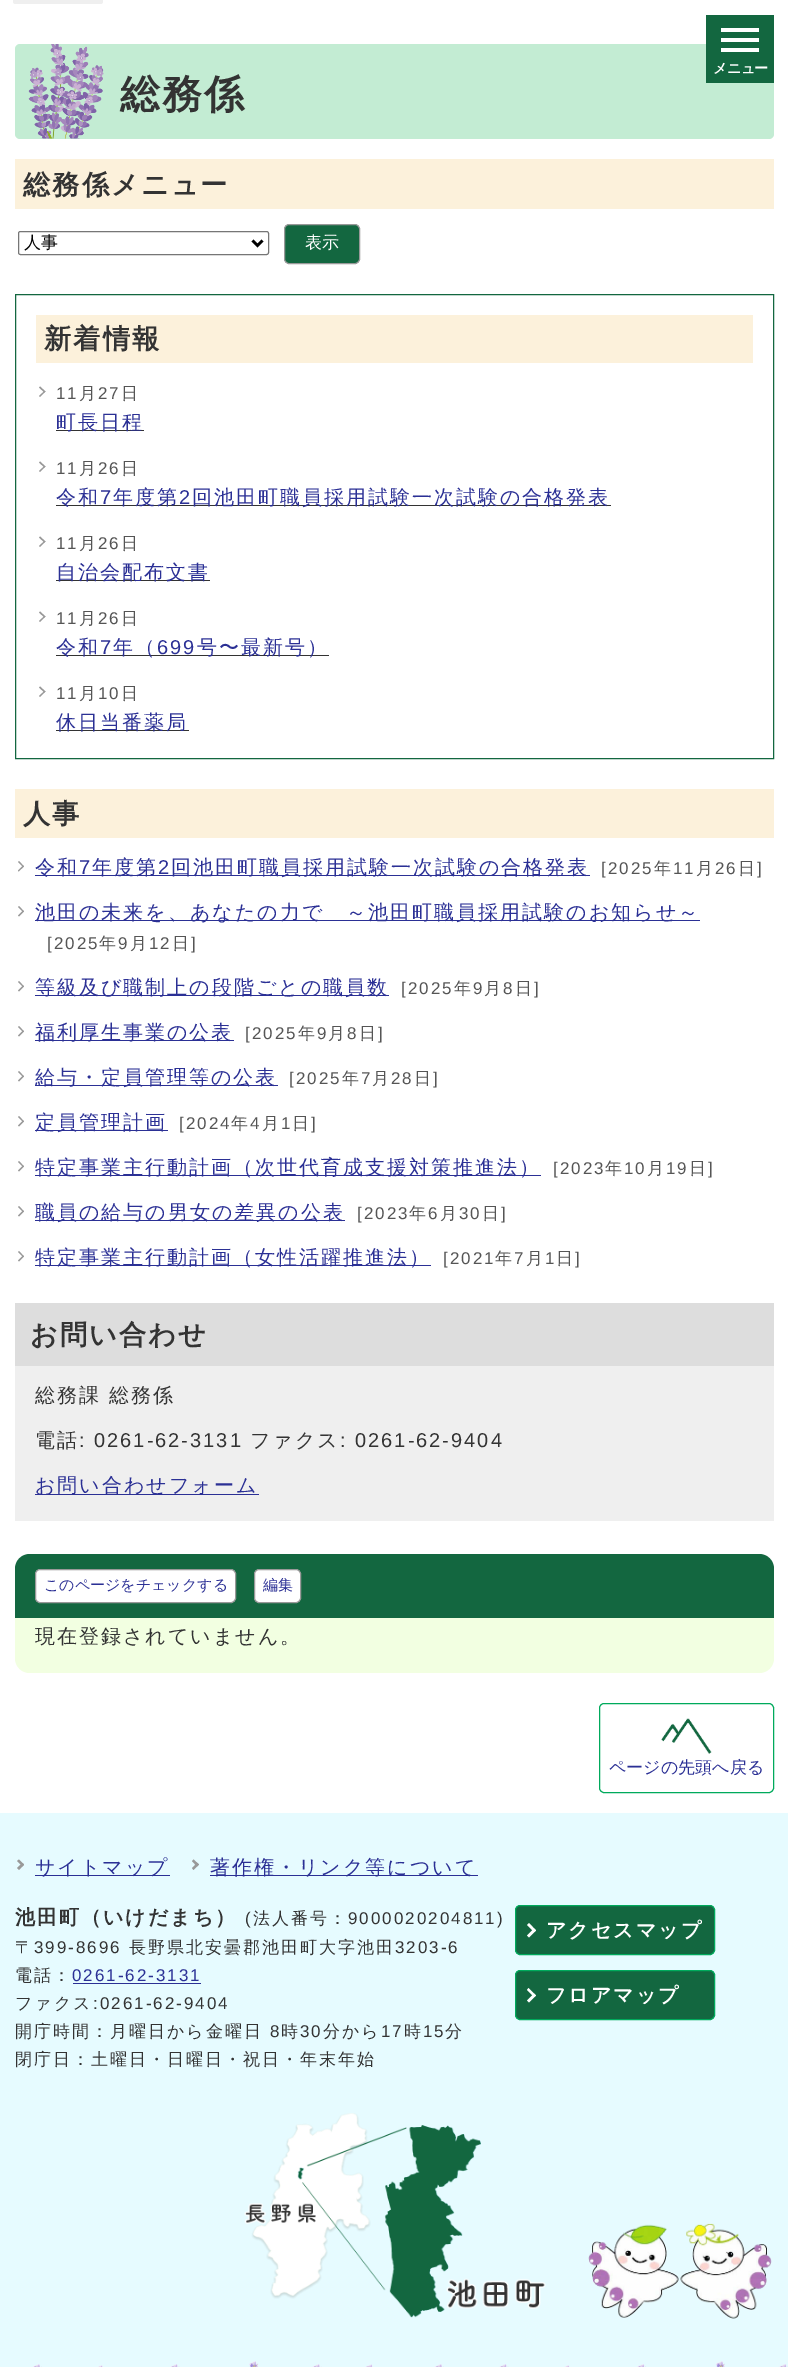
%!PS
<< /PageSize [788 2367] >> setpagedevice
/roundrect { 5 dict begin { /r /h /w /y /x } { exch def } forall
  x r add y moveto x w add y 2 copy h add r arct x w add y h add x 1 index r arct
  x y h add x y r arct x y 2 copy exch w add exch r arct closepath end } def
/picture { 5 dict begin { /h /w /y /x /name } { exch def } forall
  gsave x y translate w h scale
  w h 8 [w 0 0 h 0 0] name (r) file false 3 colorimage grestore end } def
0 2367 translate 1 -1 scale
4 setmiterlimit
1 setgray
0 0 788 2367 rectfill
0.937 setgray
13 -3 90 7 2.5 roundrect fill
0.765 0.925 0.827 setrgbcolor
15 44 759 95 5 roundrect fill
0.075 0.404 0.251 setrgbcolor
706 15 68 68 rectfill
1 setgray
721 28 38 4 rectfill
721 38 38 4 rectfill
721 48 38 4 rectfill
/WenQuanYiZenHei-Bold [14 0 0 -14 0 0] selectfont
713 73 moveto -0.5 0 (メニュー) ashow
(img1.rgb) 28 44 76 95 picture
/WenQuanYiZenHei-Bold [40 0 0 -40 0 0] selectfont
0.2 setgray
120 108 moveto 2 0 (総務係) ashow
0.988 0.945 0.859 setrgbcolor
15 159 759 50 rectfill
/WenQuanYiZenHei-Bold [27.25 0 0 -27.25 0 0] selectfont
0.2 setgray
23 194 moveto 2 0 (総務係メニュー) ashow
0.463 setgray
18.5 231.5 250 23 2 roundrect stroke
0 setgray
2.5 setlinewidth
newpath 252.5 240.5 moveto 257.5 245.5 lineto 262.5 240.5 lineto stroke
/WenQuanYiZenHei-Medium [17 0 0 -17 0 0] selectfont
24 248 moveto (人事) show
0.075 0.404 0.251 setrgbcolor
284.5 224.5 75 39 4.5 roundrect gsave fill grestore
0.6 setgray
1 setlinewidth
stroke
1 setgray
305 248 moveto (表示) show
0.075 0.404 0.251 setrgbcolor
15.5 294.5 758 464 rectstroke
0.988 0.945 0.859 setrgbcolor
36 315 717 48 rectfill
/WenQuanYiZenHei-Bold [27.25 0 0 -27.25 0 0] selectfont
0.2 setgray
44 348 moveto 2 0 (新着情報) ashow
0.6 setgray
newpath 39 387.5 moveto 40 386.5 lineto 45.5 391.5 lineto 44.5 392.5 lineto closepath fill
newpath 39 396 moveto 44.5 391 lineto 45.5 391.5 lineto 40 397 lineto closepath fill
/LiberationSans-Regular [17 0 0 -17 0 0] selectfont
0.333 setgray
56 399 moveto 2 0 (11) ashow
/WenQuanYiZenHei-Medium [17 0 0 -17 0 0] selectfont
79 399 moveto 2 0 (月) ashow
/LiberationSans-Regular [17 0 0 -17 0 0] selectfont
98 399 moveto 2 0 (27) ashow
/WenQuanYiZenHei-Medium [17 0 0 -17 0 0] selectfont
121 399 moveto 2 0 (日) ashow
0.2 setgray
56 430 88 1 rectfill
/WenQuanYiZenHei-Medium [20 0 0 -20 0 0] selectfont
0.169 0.188 0.584 setrgbcolor
56 429 moveto 2 0 (町長日程) ashow
0.6 setgray
newpath 39 462.5 moveto 40 461.5 lineto 45.5 466.5 lineto 44.5 467.5 lineto closepath fill
newpath 39 471 moveto 44.5 466 lineto 45.5 466.5 lineto 40 472 lineto closepath fill
/LiberationSans-Regular [17 0 0 -17 0 0] selectfont
0.333 setgray
56 474 moveto 2 0 (11) ashow
/WenQuanYiZenHei-Medium [17 0 0 -17 0 0] selectfont
79 474 moveto 2 0 (月) ashow
/LiberationSans-Regular [17 0 0 -17 0 0] selectfont
98 474 moveto 2 0 (26) ashow
/WenQuanYiZenHei-Medium [17 0 0 -17 0 0] selectfont
121 474 moveto 2 0 (日) ashow
0.2 setgray
56 505 555 1 rectfill
/WenQuanYiZenHei-Medium [20 0 0 -20 0 0] selectfont
0.169 0.188 0.584 setrgbcolor
56 504 moveto 2 0 (令和) ashow
/LiberationSans-Regular [20 0 0 -20 0 0] selectfont
100 504 moveto 2 0 (7) ashow
/WenQuanYiZenHei-Medium [20 0 0 -20 0 0] selectfont
113 504 moveto 2 0 (年度第) ashow
/LiberationSans-Regular [20 0 0 -20 0 0] selectfont
179 504 moveto 2 0 (2) ashow
/WenQuanYiZenHei-Medium [20 0 0 -20 0 0] selectfont
192 504 moveto 2 0 (回池田町職員採用試験一次試験の合格発表) ashow
0.6 setgray
newpath 39 537.5 moveto 40 536.5 lineto 45.5 541.5 lineto 44.5 542.5 lineto closepath fill
newpath 39 546 moveto 44.5 541 lineto 45.5 541.5 lineto 40 547 lineto closepath fill
/LiberationSans-Regular [17 0 0 -17 0 0] selectfont
0.333 setgray
56 549 moveto 2 0 (11) ashow
/WenQuanYiZenHei-Medium [17 0 0 -17 0 0] selectfont
79 549 moveto 2 0 (月) ashow
/LiberationSans-Regular [17 0 0 -17 0 0] selectfont
98 549 moveto 2 0 (26) ashow
/WenQuanYiZenHei-Medium [17 0 0 -17 0 0] selectfont
121 549 moveto 2 0 (日) ashow
0.2 setgray
56 580 154 1 rectfill
/WenQuanYiZenHei-Medium [20 0 0 -20 0 0] selectfont
0.169 0.188 0.584 setrgbcolor
56 579 moveto 2 0 (自治会配布文書) ashow
0.6 setgray
newpath 39 612.5 moveto 40 611.5 lineto 45.5 616.5 lineto 44.5 617.5 lineto closepath fill
newpath 39 621 moveto 44.5 616 lineto 45.5 616.5 lineto 40 622 lineto closepath fill
/LiberationSans-Regular [17 0 0 -17 0 0] selectfont
0.333 setgray
56 624 moveto 2 0 (11) ashow
/WenQuanYiZenHei-Medium [17 0 0 -17 0 0] selectfont
79 624 moveto 2 0 (月) ashow
/LiberationSans-Regular [17 0 0 -17 0 0] selectfont
98 624 moveto 2 0 (26) ashow
/WenQuanYiZenHei-Medium [17 0 0 -17 0 0] selectfont
121 624 moveto 2 0 (日) ashow
0.2 setgray
56 655 273 1 rectfill
/WenQuanYiZenHei-Medium [20 0 0 -20 0 0] selectfont
0.169 0.188 0.584 setrgbcolor
56 654 moveto 2 0 (令和) ashow
/LiberationSans-Regular [20 0 0 -20 0 0] selectfont
100 654 moveto 2 0 (7) ashow
/WenQuanYiZenHei-Medium [20 0 0 -20 0 0] selectfont
113 654 moveto 2 0 (年（) ashow
/LiberationSans-Regular [20 0 0 -20 0 0] selectfont
157 654 moveto 2 0 (699) ashow
/WenQuanYiZenHei-Medium [20 0 0 -20 0 0] selectfont
197 654 moveto 2 0 (号〜最新号）) ashow
0.6 setgray
newpath 39 687.5 moveto 40 686.5 lineto 45.5 691.5 lineto 44.5 692.5 lineto closepath fill
newpath 39 696 moveto 44.5 691 lineto 45.5 691.5 lineto 40 697 lineto closepath fill
/LiberationSans-Regular [17 0 0 -17 0 0] selectfont
0.333 setgray
56 699 moveto 2 0 (11) ashow
/WenQuanYiZenHei-Medium [17 0 0 -17 0 0] selectfont
79 699 moveto 2 0 (月) ashow
/LiberationSans-Regular [17 0 0 -17 0 0] selectfont
98 699 moveto 2 0 (10) ashow
/WenQuanYiZenHei-Medium [17 0 0 -17 0 0] selectfont
121 699 moveto 2 0 (日) ashow
0.2 setgray
56 730 133 1 rectfill
/WenQuanYiZenHei-Medium [20 0 0 -20 0 0] selectfont
0.169 0.188 0.584 setrgbcolor
56 729 moveto 2 0 (休日当番薬局) ashow
0.988 0.945 0.859 setrgbcolor
15 789 759 49 rectfill
/WenQuanYiZenHei-Bold [27.25 0 0 -27.25 0 0] selectfont
0.2 setgray
23 823 moveto 2 0 (人事) ashow
0.6 setgray
newpath 18 862 moveto 19 861 lineto 24 866.5 lineto 23 867 lineto closepath fill
newpath 18 870.5 moveto 23 865.5 lineto 24 866.5 lineto 18.5 871.5 lineto closepath fill
0.169 0.188 0.584 setrgbcolor
35 875 555 1 rectfill
/WenQuanYiZenHei-Medium [20 0 0 -20 0 0] selectfont
35 874 moveto 2 0 (令和) ashow
/LiberationSans-Regular [20 0 0 -20 0 0] selectfont
79 874 moveto 2 0 (7) ashow
/WenQuanYiZenHei-Medium [20 0 0 -20 0 0] selectfont
92 874 moveto 2 0 (年度第) ashow
/LiberationSans-Regular [20 0 0 -20 0 0] selectfont
158 874 moveto 2 0 (2) ashow
/WenQuanYiZenHei-Medium [20 0 0 -20 0 0] selectfont
171 874 moveto 2 0 (回池田町職員採用試験一次試験の合格発表) ashow
/LiberationSans-Regular [17 0 0 -17 0 0] selectfont
0.333 setgray
601 874 moveto 2 0 ([2025) ashow
/WenQuanYiZenHei-Medium [17 0 0 -17 0 0] selectfont
654 874 moveto 2 0 (年) ashow
/LiberationSans-Regular [17 0 0 -17 0 0] selectfont
673 874 moveto 2 0 (11) ashow
/WenQuanYiZenHei-Medium [17 0 0 -17 0 0] selectfont
696 874 moveto 2 0 (月) ashow
/LiberationSans-Regular [17 0 0 -17 0 0] selectfont
715 874 moveto 2 0 (26) ashow
/WenQuanYiZenHei-Medium [17 0 0 -17 0 0] selectfont
738 874 moveto 2 0 (日) ashow
/LiberationSans-Regular [17 0 0 -17 0 0] selectfont
757 874 moveto 2 0 (]) ashow
0.6 setgray
newpath 18 907 moveto 19 906 lineto 24 911.5 lineto 23 912 lineto closepath fill
newpath 18 915.5 moveto 23 910.5 lineto 24 911.5 lineto 19 916.5 lineto closepath fill
0.169 0.188 0.584 setrgbcolor
35 920 665 1 rectfill
/WenQuanYiZenHei-Medium [20 0 0 -20 0 0] selectfont
35 919 moveto 2 0 (池田の未来を、あなたの力で　～池田町職員採用試験のお知らせ～) ashow
/LiberationSans-Regular [17 0 0 -17 0 0] selectfont
0.333 setgray
47 949 moveto 2 0 ([2025) ashow
/WenQuanYiZenHei-Medium [17 0 0 -17 0 0] selectfont
99 949 moveto 2 0 (年) ashow
/LiberationSans-Regular [17 0 0 -17 0 0] selectfont
118 949 moveto 2 0 (9) ashow
/WenQuanYiZenHei-Medium [17 0 0 -17 0 0] selectfont
130 949 moveto 2 0 (月) ashow
/LiberationSans-Regular [17 0 0 -17 0 0] selectfont
149 949 moveto 2 0 (12) ashow
/WenQuanYiZenHei-Medium [17 0 0 -17 0 0] selectfont
172 949 moveto 2 0 (日) ashow
/LiberationSans-Regular [17 0 0 -17 0 0] selectfont
191 949 moveto 2 0 (]) ashow
0.6 setgray
newpath 18 982 moveto 19 981 lineto 24 986.5 lineto 23 987 lineto closepath fill
newpath 18 990.5 moveto 23 985.5 lineto 24 986.5 lineto 19 991.5 lineto closepath fill
0.169 0.188 0.584 setrgbcolor
35 995 354 1 rectfill
/WenQuanYiZenHei-Medium [20 0 0 -20 0 0] selectfont
35 994 moveto 2 0 (等級及び職制上の段階ごとの職員数) ashow
/LiberationSans-Regular [17 0 0 -17 0 0] selectfont
0.333 setgray
401 994 moveto 2 0 ([2025) ashow
/WenQuanYiZenHei-Medium [17 0 0 -17 0 0] selectfont
454 994 moveto 2 0 (年) ashow
/LiberationSans-Regular [17 0 0 -17 0 0] selectfont
473 994 moveto 2 0 (9) ashow
/WenQuanYiZenHei-Medium [17 0 0 -17 0 0] selectfont
484 994 moveto 2 0 (月) ashow
/LiberationSans-Regular [17 0 0 -17 0 0] selectfont
503 994 moveto 2 0 (8) ashow
/WenQuanYiZenHei-Medium [17 0 0 -17 0 0] selectfont
515 994 moveto 2 0 (日) ashow
/LiberationSans-Regular [17 0 0 -17 0 0] selectfont
534 994 moveto 2 0 (]) ashow
0.6 setgray
newpath 18 1027 moveto 19 1026 lineto 24 1031.5 lineto 23 1032 lineto closepath fill
newpath 18 1035.5 moveto 23 1030.5 lineto 24 1031.5 lineto 19 1036.5 lineto closepath fill
0.169 0.188 0.584 setrgbcolor
35 1040 199 1 rectfill
/WenQuanYiZenHei-Medium [20 0 0 -20 0 0] selectfont
35 1039 moveto 2 0 (福利厚生事業の公表) ashow
/LiberationSans-Regular [17 0 0 -17 0 0] selectfont
0.333 setgray
245 1039 moveto 2 0 ([2025) ashow
/WenQuanYiZenHei-Medium [17 0 0 -17 0 0] selectfont
298 1039 moveto 2 0 (年) ashow
/LiberationSans-Regular [17 0 0 -17 0 0] selectfont
317 1039 moveto 2 0 (9) ashow
/WenQuanYiZenHei-Medium [17 0 0 -17 0 0] selectfont
328 1039 moveto 2 0 (月) ashow
/LiberationSans-Regular [17 0 0 -17 0 0] selectfont
347 1039 moveto 2 0 (8) ashow
/WenQuanYiZenHei-Medium [17 0 0 -17 0 0] selectfont
359 1039 moveto 2 0 (日) ashow
/LiberationSans-Regular [17 0 0 -17 0 0] selectfont
378 1039 moveto 2 0 (]) ashow
0.6 setgray
newpath 18 1072 moveto 19 1071 lineto 24 1076.5 lineto 23 1077 lineto closepath fill
newpath 18 1080.5 moveto 23 1075.5 lineto 24 1076.5 lineto 19 1081.5 lineto closepath fill
0.169 0.188 0.584 setrgbcolor
35 1085 243 1 rectfill
/WenQuanYiZenHei-Medium [20 0 0 -20 0 0] selectfont
35 1084 moveto 2 0 (給与・定員管理等の公表) ashow
/LiberationSans-Regular [17 0 0 -17 0 0] selectfont
0.333 setgray
289 1084 moveto 2 0 ([2025) ashow
/WenQuanYiZenHei-Medium [17 0 0 -17 0 0] selectfont
342 1084 moveto 2 0 (年) ashow
/LiberationSans-Regular [17 0 0 -17 0 0] selectfont
361 1084 moveto 2 0 (7) ashow
/WenQuanYiZenHei-Medium [17 0 0 -17 0 0] selectfont
372 1084 moveto 2 0 (月) ashow
/LiberationSans-Regular [17 0 0 -17 0 0] selectfont
391 1084 moveto 2 0 (28) ashow
/WenQuanYiZenHei-Medium [17 0 0 -17 0 0] selectfont
414 1084 moveto 2 0 (日) ashow
/LiberationSans-Regular [17 0 0 -17 0 0] selectfont
433 1084 moveto 2 0 (]) ashow
0.6 setgray
newpath 18 1117 moveto 19 1116 lineto 24 1121.5 lineto 23 1122 lineto closepath fill
newpath 18 1125.5 moveto 23 1120.5 lineto 24 1121.5 lineto 19 1126.5 lineto closepath fill
0.169 0.188 0.584 setrgbcolor
35 1130 133 1 rectfill
/WenQuanYiZenHei-Medium [20 0 0 -20 0 0] selectfont
35 1129 moveto 2 0 (定員管理計画) ashow
/LiberationSans-Regular [17 0 0 -17 0 0] selectfont
0.333 setgray
179 1129 moveto 2 0 ([2024) ashow
/WenQuanYiZenHei-Medium [17 0 0 -17 0 0] selectfont
231 1129 moveto 2 0 (年) ashow
/LiberationSans-Regular [17 0 0 -17 0 0] selectfont
250 1129 moveto 2 0 (4) ashow
/WenQuanYiZenHei-Medium [17 0 0 -17 0 0] selectfont
262 1129 moveto 2 0 (月) ashow
/LiberationSans-Regular [17 0 0 -17 0 0] selectfont
281 1129 moveto 2 0 (1) ashow
/WenQuanYiZenHei-Medium [17 0 0 -17 0 0] selectfont
292 1129 moveto 2 0 (日) ashow
/LiberationSans-Regular [17 0 0 -17 0 0] selectfont
311 1129 moveto 2 0 (]) ashow
0.6 setgray
newpath 18 1162 moveto 19 1161 lineto 24 1166.5 lineto 23 1167 lineto closepath fill
newpath 18 1170.5 moveto 23 1165.5 lineto 24 1166.5 lineto 19 1171.5 lineto closepath fill
0.169 0.188 0.584 setrgbcolor
35 1175 506 1 rectfill
/WenQuanYiZenHei-Medium [20 0 0 -20 0 0] selectfont
35 1174 moveto 2 0 (特定事業主行動計画（次世代育成支援対策推進法）) ashow
/LiberationSans-Regular [17 0 0 -17 0 0] selectfont
0.333 setgray
553 1174 moveto 2 0 ([2023) ashow
/WenQuanYiZenHei-Medium [17 0 0 -17 0 0] selectfont
605 1174 moveto 2 0 (年) ashow
/LiberationSans-Regular [17 0 0 -17 0 0] selectfont
624 1174 moveto 2 0 (10) ashow
/WenQuanYiZenHei-Medium [17 0 0 -17 0 0] selectfont
647 1174 moveto 2 0 (月) ashow
/LiberationSans-Regular [17 0 0 -17 0 0] selectfont
666 1174 moveto 2 0 (19) ashow
/WenQuanYiZenHei-Medium [17 0 0 -17 0 0] selectfont
689 1174 moveto 2 0 (日) ashow
/LiberationSans-Regular [17 0 0 -17 0 0] selectfont
708 1174 moveto 2 0 (]) ashow
0.6 setgray
newpath 18 1207 moveto 19 1206 lineto 24 1211.5 lineto 23 1212 lineto closepath fill
newpath 18 1215.5 moveto 23 1210.5 lineto 24 1211.5 lineto 19 1216.5 lineto closepath fill
0.169 0.188 0.584 setrgbcolor
35 1220 310 1 rectfill
/WenQuanYiZenHei-Medium [20 0 0 -20 0 0] selectfont
35 1219 moveto 2 0 (職員の給与の男女の差異の公表) ashow
/LiberationSans-Regular [17 0 0 -17 0 0] selectfont
0.333 setgray
357 1219 moveto 2 0 ([2023) ashow
/WenQuanYiZenHei-Medium [17 0 0 -17 0 0] selectfont
409 1219 moveto 2 0 (年) ashow
/LiberationSans-Regular [17 0 0 -17 0 0] selectfont
428 1219 moveto 2 0 (6) ashow
/WenQuanYiZenHei-Medium [17 0 0 -17 0 0] selectfont
440 1219 moveto 2 0 (月) ashow
/LiberationSans-Regular [17 0 0 -17 0 0] selectfont
459 1219 moveto 2 0 (30) ashow
/WenQuanYiZenHei-Medium [17 0 0 -17 0 0] selectfont
482 1219 moveto 2 0 (日) ashow
/LiberationSans-Regular [17 0 0 -17 0 0] selectfont
501 1219 moveto 2 0 (]) ashow
0.6 setgray
newpath 18 1252 moveto 19 1251 lineto 24 1256.5 lineto 23 1257 lineto closepath fill
newpath 18 1260.5 moveto 23 1255.5 lineto 24 1256.5 lineto 19 1261.5 lineto closepath fill
0.169 0.188 0.584 setrgbcolor
35 1265 396 1 rectfill
/WenQuanYiZenHei-Medium [20 0 0 -20 0 0] selectfont
35 1264 moveto 2 0 (特定事業主行動計画（女性活躍推進法）) ashow
/LiberationSans-Regular [17 0 0 -17 0 0] selectfont
0.333 setgray
443 1264 moveto 2 0 ([2021) ashow
/WenQuanYiZenHei-Medium [17 0 0 -17 0 0] selectfont
495 1264 moveto 2 0 (年) ashow
/LiberationSans-Regular [17 0 0 -17 0 0] selectfont
514 1264 moveto 2 0 (7) ashow
/WenQuanYiZenHei-Medium [17 0 0 -17 0 0] selectfont
526 1264 moveto 2 0 (月) ashow
/LiberationSans-Regular [17 0 0 -17 0 0] selectfont
545 1264 moveto 2 0 (1) ashow
/WenQuanYiZenHei-Medium [17 0 0 -17 0 0] selectfont
556 1264 moveto 2 0 (日) ashow
/LiberationSans-Regular [17 0 0 -17 0 0] selectfont
575 1264 moveto 2 0 (]) ashow
0.937 setgray
15 1366 759 155 rectfill
0.867 setgray
15 1303 759 63 rectfill
/WenQuanYiZenHei-Bold [27.25 0 0 -27.25 0 0] selectfont
0.2 setgray
30 1344 moveto 2 0 (お問い合わせ) ashow
/WenQuanYiZenHei-Medium [20 0 0 -20 0 0] selectfont
35 1402 moveto 2 0 (総務課 総務係) ashow
35 1447 moveto 2 0 (電話) ashow
/LiberationSans-Regular [20 0 0 -20 0 0] selectfont
79 1447 moveto 2 0 (: 0261-62-3131) ashow
/WenQuanYiZenHei-Medium [20 0 0 -20 0 0] selectfont
250 1447 moveto 2 0 (ファクス) ashow
/LiberationSans-Regular [20 0 0 -20 0 0] selectfont
340 1447 moveto 2 0 (: 0261-62-9404) ashow
0.169 0.188 0.584 setrgbcolor
35 1494 224 1 rectfill
/WenQuanYiZenHei-Medium [20 0 0 -20 0 0] selectfont
35 1492 moveto 2 0 (お問い合わせフォーム) ashow
0.075 0.404 0.251 setrgbcolor
newpath 30 1554 moveto 759 1554 lineto 767.5 1554 774 1560.5 774 1569 curveto 774 1618 lineto 15 1618 lineto 15 1569 lineto 15 1560.5 21.5 1554 30 1554 curveto closepath fill
1 setgray
35.5 1569.5 200 33 4.5 roundrect gsave fill grestore
0.6 setgray
stroke
/WenQuanYiZenHei-Medium [15 0 0 -15 0 0] selectfont
0.169 0.188 0.584 setrgbcolor
44 1590 moveto (このページをチェックする) show
1 setgray
254.5 1569.5 46 33 4.5 roundrect gsave fill grestore
0.6 setgray
stroke
0.169 0.188 0.584 setrgbcolor
263 1590 moveto (編集) show
0.949 1 0.882 setrgbcolor
newpath 15 1618 moveto 774 1618 lineto 774 1658 lineto 774 1666.5 767.5 1673 759 1673 curveto 30 1673 lineto 21.5 1673 15 1666.5 15 1658 curveto closepath fill
/WenQuanYiZenHei-Medium [20 0 0 -20 0 0] selectfont
0.2 setgray
35 1643 moveto 2 0 (現在登録されていません。) ashow
(img2.rgb) 661 1718 51 36 picture
0 0.667 0.361 setrgbcolor
599.5 1703.5 174 89 4.5 roundrect stroke
/WenQuanYiZenHei-Medium [17 0 0 -17 0 0] selectfont
0.169 0.188 0.584 setrgbcolor
609 1773 moveto (ページの先頭へ戻る) show
0.902 0.984 1 setrgbcolor
0 1813 788 554 rectfill
0.6 setgray
newpath 17 1861 moveto 19 1859.5 lineto 24 1864.5 lineto 22.5 1866.5 lineto closepath fill
newpath 17 1868 moveto 22.5 1863 lineto 24 1864.5 lineto 19 1870 lineto closepath fill
0.169 0.188 0.584 setrgbcolor
35 1875 135 1 rectfill
/WenQuanYiZenHei-Medium [20 0 0 -20 0 0] selectfont
35 1874 moveto 2 0 (サイトマップ) ashow
0.6 setgray
newpath 192 1861 moveto 193.5 1859.5 lineto 199 1864.5 lineto 197 1866.5 lineto closepath fill
newpath 192 1868 moveto 197 1863 lineto 199 1864.5 lineto 193.5 1870 lineto closepath fill
0.169 0.188 0.584 setrgbcolor
210 1875 268 1 rectfill
210 1874 moveto 2 0 (著作権・リンク等について) ashow
/WenQuanYiZenHei-Bold [20 0 0 -20 0 0] selectfont
0.2 setgray
15 1924 moveto 2 0 (池田町（いけだまち）) ashow
/LiberationSans-Regular [17 0 0 -17 0 0] selectfont
245 1924 moveto 2 0 (\() ashow
/WenQuanYiZenHei-Medium [17 0 0 -17 0 0] selectfont
253 1924 moveto 2 0 (法人番号：) ashow
/LiberationSans-Regular [17 0 0 -17 0 0] selectfont
348 1924 moveto 2 0 (9000020204811\)) ashow
/WenQuanYiZenHei-Medium [17 0 0 -17 0 0] selectfont
15 1953 moveto 2 0 (〒) ashow
/LiberationSans-Regular [17 0 0 -17 0 0] selectfont
34 1953 moveto 2 0 (399-8696) ashow
/WenQuanYiZenHei-Medium [17 0 0 -17 0 0] selectfont
129 1953 moveto 2 0 (長野県北安曇郡池田町大字池田) ashow
/LiberationSans-Regular [17 0 0 -17 0 0] selectfont
395 1953 moveto 2 0 (3203-6) ashow
/WenQuanYiZenHei-Medium [17 0 0 -17 0 0] selectfont
15 1981 moveto 2 0 (電話：) ashow
/LiberationSans-Regular [17 0 0 -17 0 0] selectfont
0.169 0.188 0.584 setrgbcolor
72 1981 moveto 2 0 (0261-62-3131) ashow
73 1983 128 1 rectfill
/WenQuanYiZenHei-Medium [17 0 0 -17 0 0] selectfont
0.2 setgray
15 2009 moveto 2 0 (ファクス) ashow
/LiberationSans-Regular [17 0 0 -17 0 0] selectfont
93 2009 moveto 2 0 (:0261-62-9404) ashow
/WenQuanYiZenHei-Medium [17 0 0 -17 0 0] selectfont
15 2037 moveto 2 0 (開庁時間：月曜日から金曜日) ashow
/LiberationSans-Regular [17 0 0 -17 0 0] selectfont
270 2037 moveto 2 0 (8) ashow
/WenQuanYiZenHei-Medium [17 0 0 -17 0 0] selectfont
281 2037 moveto 2 0 (時) ashow
/LiberationSans-Regular [17 0 0 -17 0 0] selectfont
300 2037 moveto 2 0 (30) ashow
/WenQuanYiZenHei-Medium [17 0 0 -17 0 0] selectfont
323 2037 moveto 2 0 (分から) ashow
/LiberationSans-Regular [17 0 0 -17 0 0] selectfont
381 2037 moveto 2 0 (17) ashow
/WenQuanYiZenHei-Medium [17 0 0 -17 0 0] selectfont
404 2037 moveto 2 0 (時) ashow
/LiberationSans-Regular [17 0 0 -17 0 0] selectfont
423 2037 moveto 2 0 (15) ashow
/WenQuanYiZenHei-Medium [17 0 0 -17 0 0] selectfont
445 2037 moveto 2 0 (分) ashow
15 2065 moveto 2 0 (閉庁日：土曜日・日曜日・祝日・年末年始) ashow
0.075 0.404 0.251 setrgbcolor
515.5 1905.5 199 49 4.5 roundrect gsave fill grestore
0 0.667 0.361 setrgbcolor
stroke
1 setgray
newpath 527 1925 moveto 529 1923 lineto 536 1930.5 lineto 534 1932 lineto closepath fill
newpath 527 1935.5 moveto 534 1928.5 lineto 536 1930.5 lineto 529 1937.5 lineto closepath fill
/WenQuanYiZenHei-Bold [20 0 0 -20 0 0] selectfont
546 1937 moveto 2 0 (アクセスマップ) ashow
0.075 0.404 0.251 setrgbcolor
515.5 1970.5 199 49 4.5 roundrect gsave fill grestore
0 0.667 0.361 setrgbcolor
stroke
1 setgray
newpath 527 1990 moveto 528.5 1988 lineto 536 1995.5 lineto 534 1997 lineto closepath fill
newpath 527 2000.5 moveto 534 1993.5 lineto 536 1995.5 lineto 529 2002.5 lineto closepath fill
546 2002 moveto 2 0 (フロアマップ) ashow
(img3.rgb) 244 2113 302 205 picture
(img4.rgb) 588 2223 184 96 picture
(img5.rgb) 33 2361 755 6 picture
showpage
